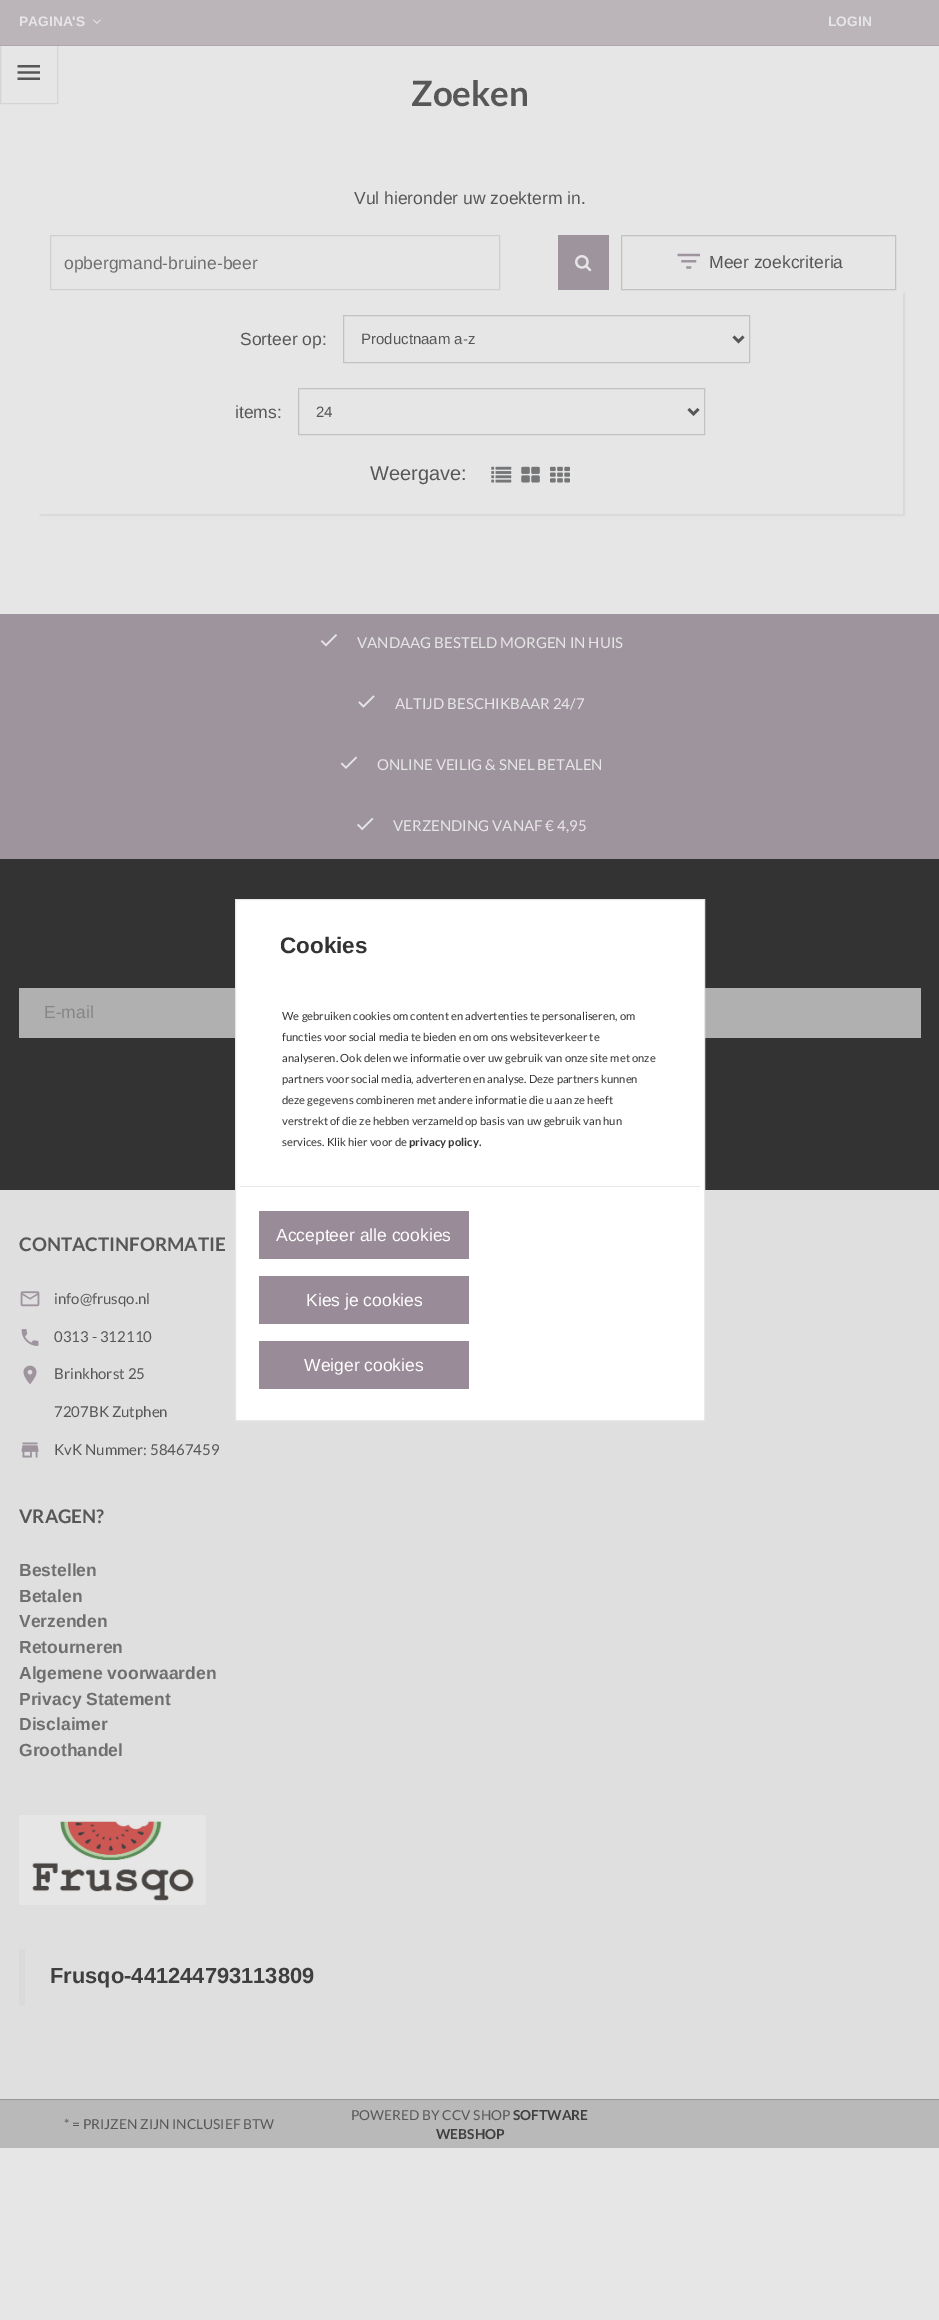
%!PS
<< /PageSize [939 2320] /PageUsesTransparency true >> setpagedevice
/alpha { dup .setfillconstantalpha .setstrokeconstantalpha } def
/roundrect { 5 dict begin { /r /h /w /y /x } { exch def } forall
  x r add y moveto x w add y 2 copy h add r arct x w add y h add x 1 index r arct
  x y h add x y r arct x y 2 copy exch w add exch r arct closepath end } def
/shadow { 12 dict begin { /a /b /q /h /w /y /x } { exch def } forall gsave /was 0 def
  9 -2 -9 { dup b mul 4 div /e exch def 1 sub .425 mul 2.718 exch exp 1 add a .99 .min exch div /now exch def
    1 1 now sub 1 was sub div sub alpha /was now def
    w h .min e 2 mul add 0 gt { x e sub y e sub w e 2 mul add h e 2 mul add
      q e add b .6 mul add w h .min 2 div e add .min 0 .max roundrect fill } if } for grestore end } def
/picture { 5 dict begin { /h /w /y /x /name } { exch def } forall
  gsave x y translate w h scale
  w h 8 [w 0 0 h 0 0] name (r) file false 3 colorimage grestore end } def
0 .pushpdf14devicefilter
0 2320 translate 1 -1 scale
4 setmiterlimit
0.902 setgray
0 0 939 2320 rectfill
0.831 setgray
0.5 44.5 57 59 rectstroke
0.733 0.71 0.729 setrgbcolor
0 0 939 45 rectfill
0.682 0.659 0.678 setrgbcolor
0 45 939 1 rectfill
/LiberationSans-Bold [13.75 0 0 -13.75 0 0] selectfont
0.902 setgray
19 26 moveto (PAGINA'S) show
(img1.rgb) 93 19 8 5 picture
828 26 moveto (LOGIN) show
(img2.rgb) 17 65 23 15 picture
/Lato-Bold [35 0 0 -35 0 0] selectfont
0.341 setgray
411 106 moveto (Zoeken) show
/LiberationSans-Regular [17.5 0 0 -17.5 0 0] selectfont
354 204 moveto (Vul hieronder uw zoekterm in.) show
0.761 setgray
621.5 235.5 274 54 rectstroke
0.792 setgray
40 293 865 223 0 1 0.5 shadow
0.812 setgray
50.5 235.5 449 54 rectstroke
0.435 setgray
64 269 moveto (opbergmand-bruine-beer) show
0.62 0.58 0.616 setrgbcolor
558 235 51 55 rectfill
(img3.rgb) 575 255 17 17 picture
(img4.rgb) 677 253 23 16 picture
0.341 setgray
709 268 moveto (Meer zoekcriteria) show
0.902 setgray
39 292 864 222 rectfill
0.341 setgray
240 345 moveto (Sorteer op:) show
0.761 setgray
343.5 315.5 406 47 rectstroke
0.341 setgray
2.5 setlinewidth
newpath 733.5 336.5 moveto 738.5 341.5 lineto 743.5 336.5 lineto stroke
/LiberationSans-Regular [15 0 0 -15 0 0] selectfont
361 344 moveto (Productnaam a-z) show
/LiberationSans-Regular [17.5 0 0 -17.5 0 0] selectfont
235 418 moveto (items:) show
0.761 setgray
1 setlinewidth
298.5 388.5 406 46 rectstroke
0.341 setgray
2.5 setlinewidth
newpath 688.5 409 moveto 693.5 414 lineto 698.5 409 lineto stroke
/LiberationSans-Regular [15 0 0 -15 0 0] selectfont
316 417 moveto (24) show
/LiberationSans-Regular [20 0 0 -20 0 0] selectfont
370 480 moveto (Weergave:) show
(img5.rgb) 491 466 21 17 picture
(img6.rgb) 521 466 19 17 picture
(img7.rgb) 550 466 20 17 picture
0.62 0.58 0.616 setrgbcolor
0 614 939 245 rectfill
(img8.rgb) 320 634 18 13 picture
/Lato-Regular [15 0 0 -15 0 0] selectfont
0.902 setgray
357 648 moveto (VANDAAG BESTELD MORGEN IN HUIS) show
(img9.rgb) 358 695 17 13 picture
395 709 moveto (ALTIJD BESCHIKBAAR 24/7) show
(img10.rgb) 340 756 18 13 picture
377 770 moveto (ONLINE VEILIG & SNEL BETALEN) show
(img11.rgb) 357 817 17 14 picture
393 831 moveto (VERZENDING VANAF € 4,95) show
0.2 setgray
0 859 939 331 rectfill
0.69 setgray
19 988 902 50 rectfill
/LiberationSans-Regular [17.5 0 0 -17.5 0 0] selectfont
0.522 setgray
44 1018 moveto (E-mail) show
0.875 0.875 0.878 setrgbcolor
0 1190 939 909 rectfill
1 setgray
newpath 235.5 899.5 moveto 704.5 899.5 lineto 704.5 1420.5 lineto 235.5 1420.5 lineto closepath gsave fill grestore
0.91 setgray
1 setlinewidth
stroke
/LiberationSans-Bold [22.5 0 0 -22.5 0 0] selectfont
0.2 setgray
280 953 moveto (Cookies) show
/Lato-Regular [11.25 0 0 -11.25 0 0] selectfont
282 1020 moveto (We gebruiken cookies om content en advertenties te personaliseren, om) show
282 1041 moveto (functies voor social media te bieden en om ons websiteverkeer te) show
282 1062 moveto (analyseren. Ook delen we informatie over uw gebruik van onze site met onze) show
282 1083 moveto (partners voor social media, adverteren en analyse. Deze partners kunnen) show
282 1104 moveto (deze gegevens combineren met andere informatie die u aan ze heeft) show
282 1125 moveto (verstrekt of die ze hebben verzameld op basis van uw gebruik van hun) show
282 1146 moveto (services. Klik hier voor de) show
/Lato-Bold [11.25 0 0 -11.25 0 0] selectfont
409 1146 moveto (privacy policy.) show
0.91 setgray
240 1186 460 1 rectfill
0.6 0.545 0.596 setrgbcolor
259 1211 210 48 rectfill
/LiberationSans-Regular [17.5 0 0 -17.5 0 0] selectfont
1 setgray
276 1241 moveto (Accepteer alle cookies) show
0.6 0.545 0.596 setrgbcolor
259 1276 210 48 rectfill
1 setgray
306 1306 moveto (Kies je cookies) show
0.6 0.545 0.596 setrgbcolor
259 1341 210 48 rectfill
1 setgray
304 1371 moveto (Weiger cookies) show
/Lato-Bold [18.75 0 0 -18.75 0 0] selectfont
0.341 setgray
19 1251 moveto (CONTACTINFORMATIE) show
(img12.rgb) 20 1291 20 16 picture
/Lato-Regular [15 0 0 -15 0 0] selectfont
54 1304 moveto (info@frusqo.nl) show
(img13.rgb) 21 1329 18 17 picture
54 1342 moveto (0313 - 312110) show
(img14.rgb) 23 1365 14 20 picture
54 1379 moveto (Brinkhorst 25) show
54 1417 moveto (7207BK Zutphen) show
(img15.rgb) 21 1442 18 16 picture
54 1455 moveto (KvK Nummer: 58467459) show
/Lato-Bold [18.75 0 0 -18.75 0 0] selectfont
19 1523 moveto (VRAGEN?) show
/LiberationSans-Bold [17.5 0 0 -17.5 0 0] selectfont
0.435 setgray
19 1576 moveto (Bestellen) show
19 1602 moveto (Betalen) show
19 1627 moveto (Verzenden) show
19 1653 moveto (Retourneren) show
19 1679 moveto (Algemene voorwaarden) show
19 1705 moveto (Privacy Statement) show
19 1730 moveto (Disclaimer) show
19 1756 moveto (Groothandel) show
(img16.rgb) 19 1815 187 90 picture
0.855 setgray
19 1949 6 56 rectfill
/LiberationSans-Bold [21.9 0 0 -21.9 0 0] selectfont
0.247 setgray
50 1983 moveto (Frusqo-441244793113809) show
0.725 setgray
0 2100 939 48 rectfill
0.592 setgray
0 2099 939 1 rectfill
/Lato-Regular [13.75 0 0 -13.75 0 0] selectfont
0.341 setgray
64 2129 moveto (* = PRIJZEN ZIJN INCLUSIEF BTW) show
351 2120 moveto (POWERED BY CCV SHOP) show
/Lato-Bold [13.75 0 0 -13.75 0 0] selectfont
0.247 setgray
513 2120 moveto (SOFTWARE) show
436 2139 moveto (WEBSHOP) show
.poppdf14devicefilter showpage
